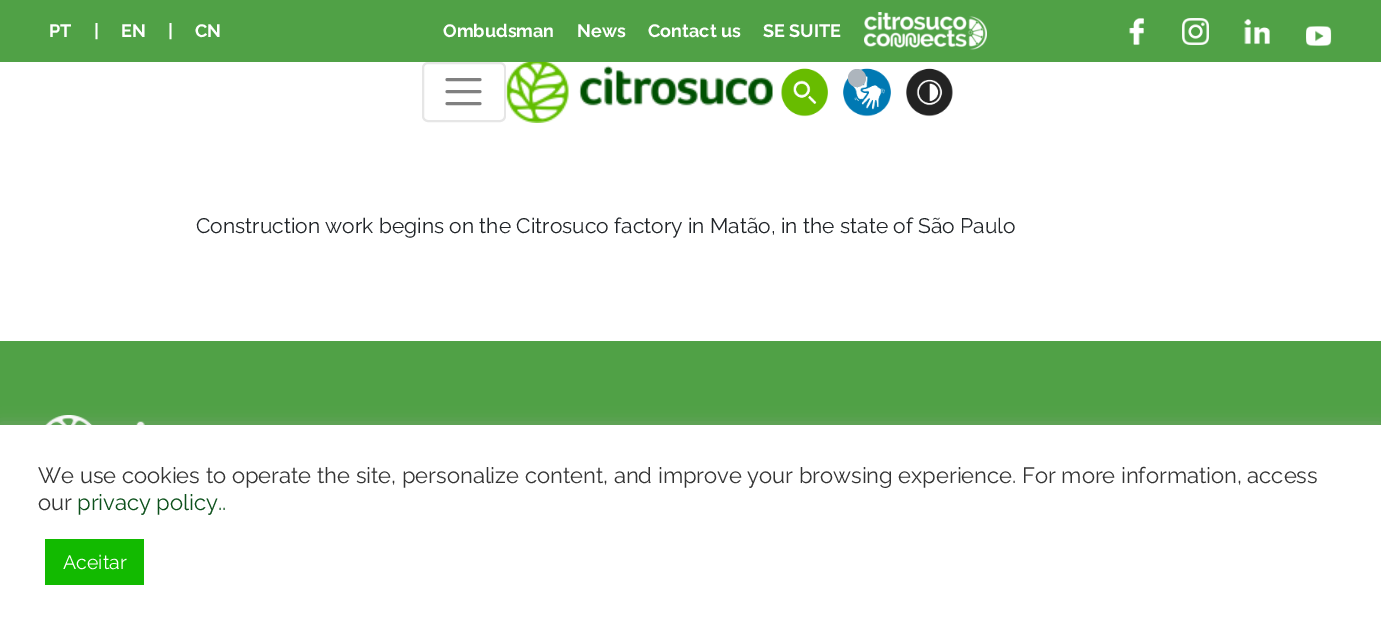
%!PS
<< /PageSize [1381 629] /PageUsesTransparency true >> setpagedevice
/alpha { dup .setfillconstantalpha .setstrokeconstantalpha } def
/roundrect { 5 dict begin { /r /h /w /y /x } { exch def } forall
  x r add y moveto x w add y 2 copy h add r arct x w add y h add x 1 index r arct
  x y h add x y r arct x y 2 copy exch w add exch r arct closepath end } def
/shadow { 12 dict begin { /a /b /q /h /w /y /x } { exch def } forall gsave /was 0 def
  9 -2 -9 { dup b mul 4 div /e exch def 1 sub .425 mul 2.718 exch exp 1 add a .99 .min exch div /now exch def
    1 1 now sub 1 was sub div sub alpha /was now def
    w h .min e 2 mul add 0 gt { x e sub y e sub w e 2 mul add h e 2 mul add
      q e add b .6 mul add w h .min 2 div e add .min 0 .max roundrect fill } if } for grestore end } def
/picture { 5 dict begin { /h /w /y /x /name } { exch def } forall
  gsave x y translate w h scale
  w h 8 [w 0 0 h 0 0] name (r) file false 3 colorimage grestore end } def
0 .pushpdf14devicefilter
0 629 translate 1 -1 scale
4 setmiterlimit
1 setgray
0 0 1381 629 rectfill
0.314 0.631 0.275 setrgbcolor
0 0 1381 62 rectfill
/Raleway-Bold [18 0 0 -18 0 0] selectfont
1 setgray
49 37 moveto (PT) show
94 37 moveto (|) show
121 37 moveto (EN) show
168 37 moveto (|) show
195 37 moveto (CN) show
443 37 moveto (Ombudsman) show
577 37 moveto (News) show
648 37 moveto (Contact us) show
763 37 moveto (SE SUITE) show
(img1.rgb) 864 12 123 38 picture
(img2.rgb) 1129 18 15 27 picture
(img3.rgb) 1182 18 27 27 picture
(img4.rgb) 1244 19 26 26 picture
(img5.rgb) 1306 26 26 20 picture
0.902 setgray
2 setlinewidth
423 63 82 58 5 roundrect stroke
0.502 setgray
3 setlinewidth
1 setlinecap
newpath 447 79.5 moveto 480 79.5 lineto 447 91.5 moveto 480 91.5 lineto 447 103.5 moveto 480 103.5 lineto stroke
(img6.rgb) 506 62 267 61 picture
(img7.rgb) 781 68 47 49 picture
(img8.rgb) 843 68 48 49 picture
0.678 0.71 0.741 setrgbcolor
newpath 857 78 9 0 360 arc closepath fill
(img9.rgb) 906 68 47 49 picture
/Raleway-Regular [21 0 0 -21 0 0] selectfont
0.129 0.145 0.161 setrgbcolor
196 233 moveto (Construction work begins on the Citrosuco factory in Matão, in the state of São Paulo) show
0.314 0.631 0.275 setrgbcolor
0 341 1381 84 rectfill
(img10.rgb) 45 415 100 10 picture
0.675 0.671 0.671 setrgbcolor
0 423 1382 206 0 7.5 0.3 shadow
1 setgray
0 425 1381 204 rectfill
/Raleway-Regular [22 0 0 -22 0 0] selectfont
0.2 setgray
38 483 moveto (We use cookies to operate the site, personalize content, and improve your browsing experience. For more information, access) show
38 510 moveto (our) show
0.047 0.314 0.106 setrgbcolor
77 510 moveto (privacy policy..) show
0.071 0.729 0 setrgbcolor
45 539 99 46 rectfill
/Raleway-Regular [19.5 0 0 -19.5 0 0] selectfont
1 setgray
63 569 moveto (Aceitar) show
.poppdf14devicefilter showpage
